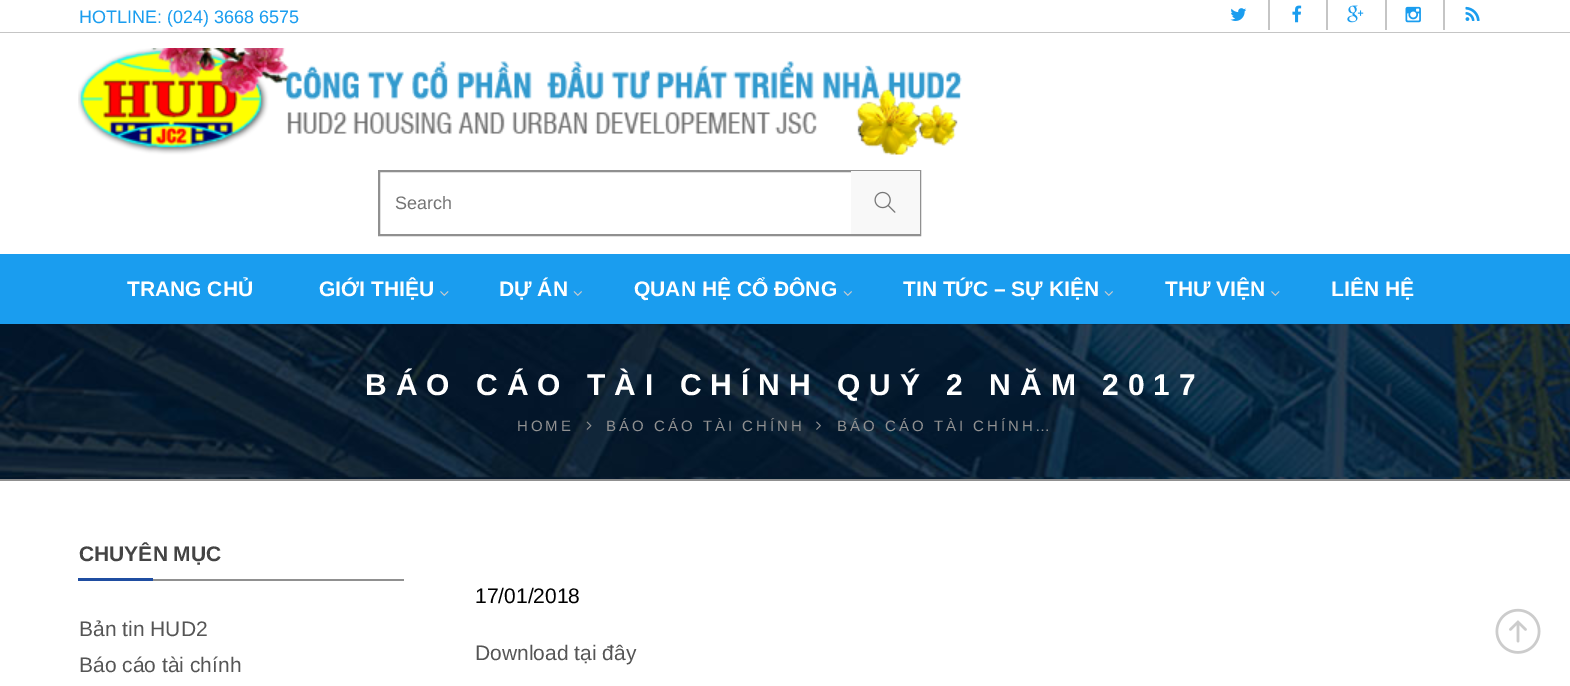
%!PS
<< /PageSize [1570 686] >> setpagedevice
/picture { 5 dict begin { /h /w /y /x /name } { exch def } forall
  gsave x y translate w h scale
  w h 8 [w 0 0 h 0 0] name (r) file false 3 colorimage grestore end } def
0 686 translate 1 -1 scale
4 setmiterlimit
1 setgray
0 0 1570 686 rectfill
0.773 setgray
0 32 1570 1 rectfill
/LiberationSans-Regular [18 0 0 -18 0 0] selectfont
0.102 0.616 0.937 setrgbcolor
79 23 moveto (HOTLINE: \(024\) 3668 6575) show
(img1.rgb) 1230 8 17 13 picture
0.773 setgray
1268 0 2 30 rectfill
(img2.rgb) 1292 5 10 18 picture
1326 0 2 30 rectfill
(img3.rgb) 1347 5 17 18 picture
1385 0 2 30 rectfill
(img4.rgb) 1405 6 16 17 picture
1443 0 2 30 rectfill
(img5.rgb) 1465 6 15 15 picture
(img6.rgb) 78 48 884 107 picture
0.565 setgray
2 setlinewidth
379 171 541 64 rectstroke
0.459 setgray
395 209 moveto (Search) show
0.973 setgray
851 171 69 63 rectfill
(img7.rgb) 874 191 22 22 picture
0.102 0.616 0.937 setrgbcolor
0 254 1570 70 rectfill
/LiberationSans-Bold [21 0 0 -21 0 0] selectfont
1 setgray
127 296 moveto (TRANG CHỦ) show
319 296 moveto (GIỚI THIỆU) show
(img8.rgb) 440 291 9 5 picture
499 296 moveto (DỰ ÁN) show
(img9.rgb) 573 291 9 5 picture
634 296 moveto (QUAN HỆ CỔ ĐÔNG) show
(img9.rgb) 843 291 9 5 picture
903 296 moveto (TIN TỨC – SỰ KIỆN) show
(img9.rgb) 1104 291 9 5 picture
1165 296 moveto (THƯ VIỆN) show
(img8.rgb) 1271 291 9 5 picture
1331 296 moveto (LIÊN HỆ) show
(img10.rgb) 0 324 1570 155 picture
0.565 setgray
0 479 1570 2 rectfill
/LiberationSans-Bold [30 0 0 -30 0 0] selectfont
1 setgray
365 395 moveto 9 0 (BÁO CÁO TÀI CHÍNH QUÝ 2 NĂM 2017) ashow
/LiberationSans-Regular [15 0 0 -15 0 0] selectfont
0.573 setgray
517 431 moveto 3 0 (HOME) ashow
(img11.rgb) 586 421 6 9 picture
606 431 moveto 3 0 (BÁO CÁO TÀI CHÍNH) ashow
(img12.rgb) 816 421 5 9 picture
837 431 moveto 3 0 (BÁO CÁO TÀI CHÍNH…) ashow
0.565 setgray
153 579 251 2 rectfill
/LiberationSans-Bold [21 0 0 -21 0 0] selectfont
0.267 setgray
79 561 moveto (CHUYÊN MỤC) show
0.122 0.302 0.631 setrgbcolor
78 578 75 3 rectfill
/LiberationSans-Regular [21 0 0 -21 0 0] selectfont
0.333 setgray
79 636 moveto (Bản tin HUD2) show
79 672 moveto (Báo cáo tài chính) show
0 setgray
475 603 moveto (17/01/2018) show
0.333 setgray
475 660 moveto (Download tại đây) show
(img13.rgb) 1495 608 46 46 picture
showpage
